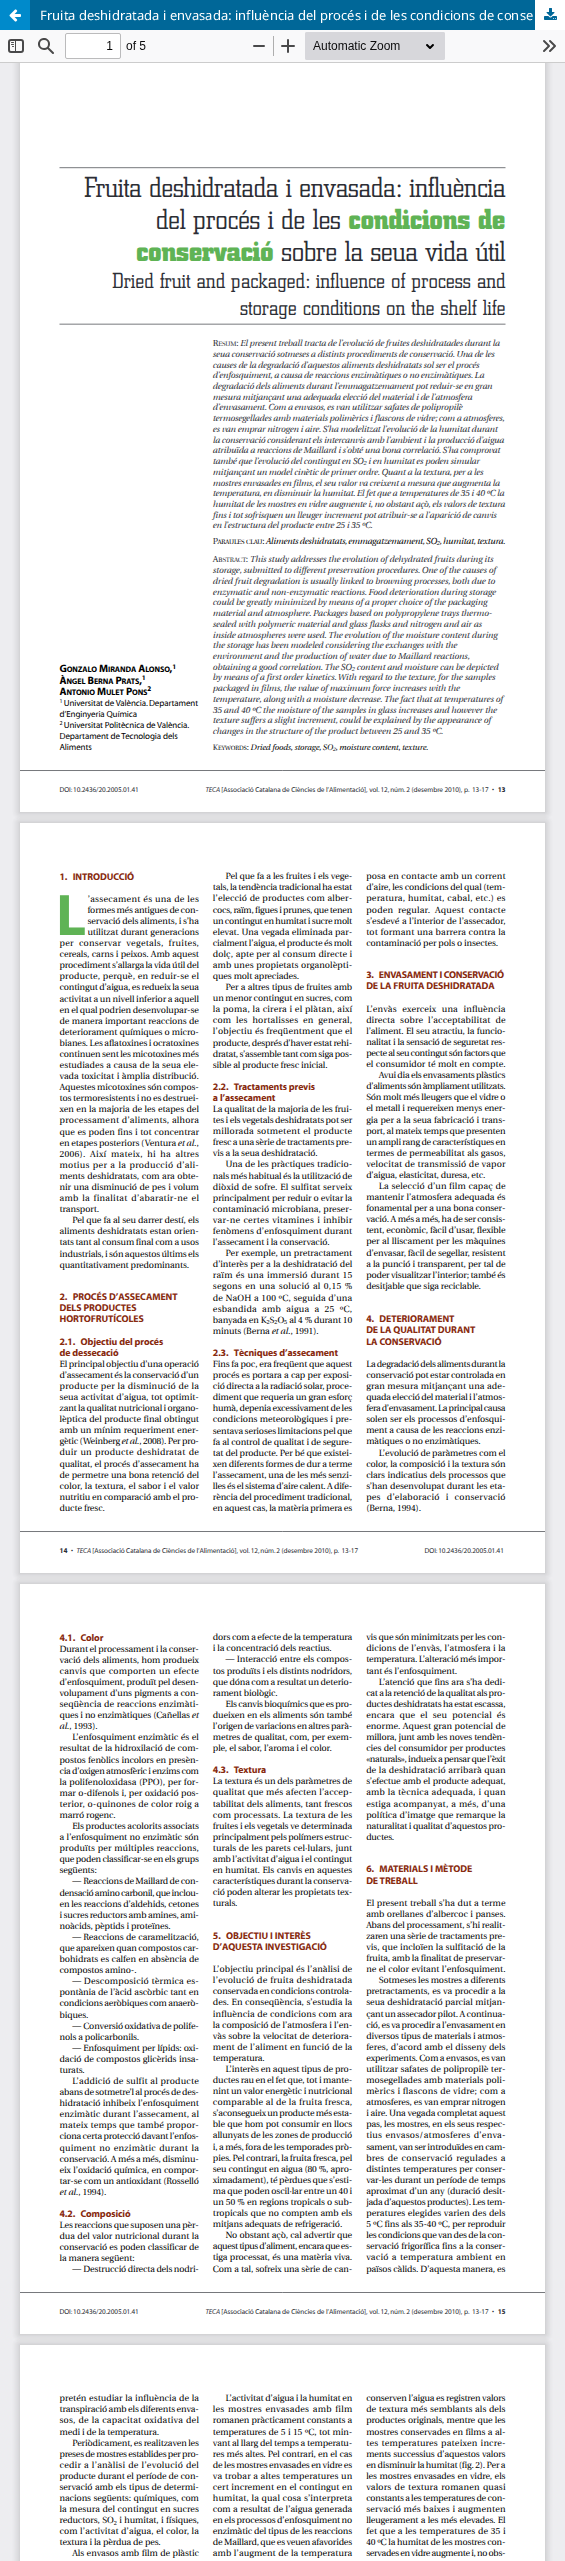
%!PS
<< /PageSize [565 2561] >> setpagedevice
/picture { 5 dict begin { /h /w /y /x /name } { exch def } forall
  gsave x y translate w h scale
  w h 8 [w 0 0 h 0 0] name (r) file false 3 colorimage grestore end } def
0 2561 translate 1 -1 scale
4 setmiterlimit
1 setgray
0 0 565 2561 rectfill
0 0.404 0.596 setrgbcolor
30 0 505 30 rectfill
0 0.541 0.796 setrgbcolor
0 0 30 30 rectfill
(img1.rgb) 9 9 12 13 picture
/NotoSans-Regular [13 0 0 -13 0 0] selectfont
1 setgray
40 20 moveto (Fruita deshidratada i envasada: influència del procés i de les condicions de conse) show
(img2.rgb) 544 8 13 12 picture
(img3.rgb) 0 30 565 2531 picture
showpage
